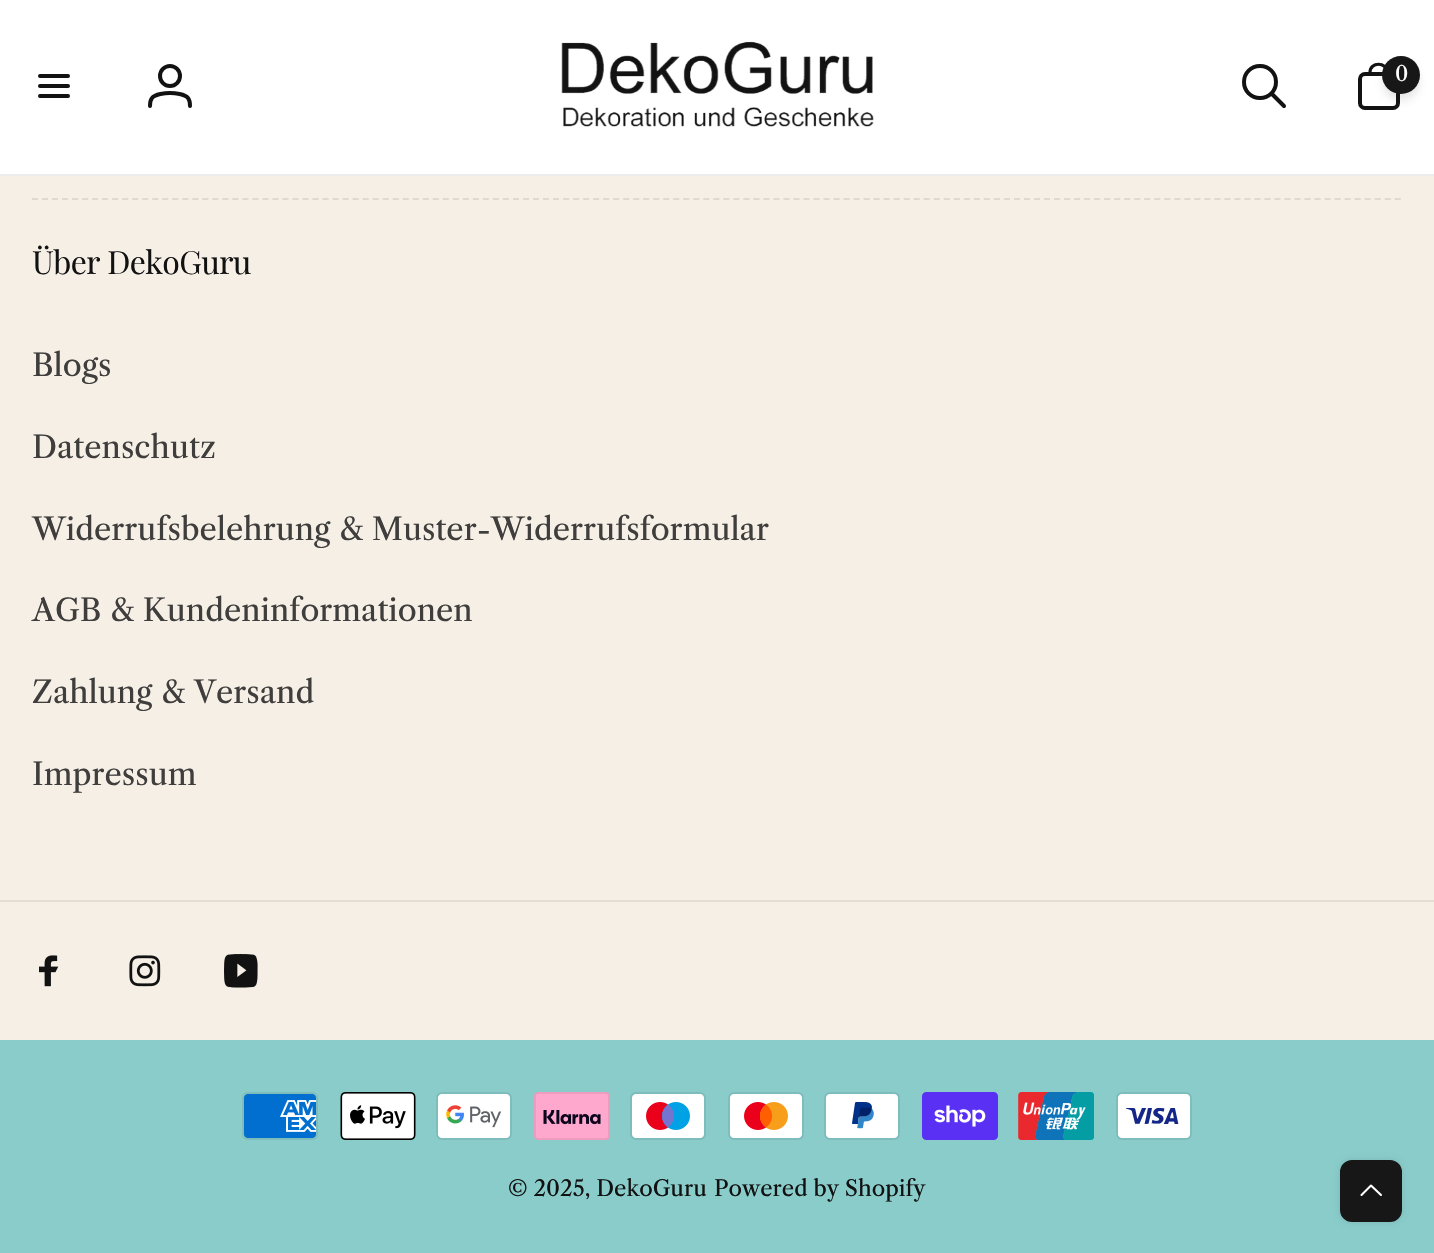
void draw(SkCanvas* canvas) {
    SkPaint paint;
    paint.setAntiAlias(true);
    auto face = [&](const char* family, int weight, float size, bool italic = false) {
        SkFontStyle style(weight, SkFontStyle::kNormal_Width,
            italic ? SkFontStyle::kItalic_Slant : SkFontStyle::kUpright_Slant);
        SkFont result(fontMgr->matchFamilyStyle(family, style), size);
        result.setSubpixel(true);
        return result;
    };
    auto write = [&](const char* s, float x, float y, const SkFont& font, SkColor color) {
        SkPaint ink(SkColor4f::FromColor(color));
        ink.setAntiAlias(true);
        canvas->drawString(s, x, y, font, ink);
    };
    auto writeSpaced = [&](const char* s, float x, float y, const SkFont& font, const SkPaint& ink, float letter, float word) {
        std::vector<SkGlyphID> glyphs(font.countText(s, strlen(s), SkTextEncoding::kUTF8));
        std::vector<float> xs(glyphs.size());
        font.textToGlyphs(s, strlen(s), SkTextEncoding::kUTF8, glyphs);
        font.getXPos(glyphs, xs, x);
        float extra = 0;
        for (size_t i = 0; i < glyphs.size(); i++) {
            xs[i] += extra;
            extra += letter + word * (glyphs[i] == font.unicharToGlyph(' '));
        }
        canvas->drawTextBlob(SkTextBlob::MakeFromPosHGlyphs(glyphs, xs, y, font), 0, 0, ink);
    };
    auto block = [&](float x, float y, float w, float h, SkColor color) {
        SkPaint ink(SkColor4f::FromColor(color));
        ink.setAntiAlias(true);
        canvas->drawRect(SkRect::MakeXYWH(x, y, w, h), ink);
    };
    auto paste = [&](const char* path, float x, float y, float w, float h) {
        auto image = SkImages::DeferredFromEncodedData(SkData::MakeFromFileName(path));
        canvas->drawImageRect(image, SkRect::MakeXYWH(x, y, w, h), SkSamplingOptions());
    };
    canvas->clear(SkColorSetRGB(245, 239, 230));
    block(0, 0, 1434, 174, SK_ColorWHITE);
    block(0, 174, 1434, 2, SkColorSetRGB(236, 236, 236));
    paint.setStyle(SkPaint::kStroke_Style);
    paint.setStrokeWidth(4);
    paint.setStrokeCap(SkPaint::kRound_Cap);
    paint.setColor(SkColorSetRGB(18, 18, 18));
    canvas->drawPath(SkPathBuilder().moveTo(40, 76).lineTo(68, 76).moveTo(40, 86).lineTo(68, 86).moveTo(40, 96).lineTo(68, 96).detach(), paint);
    paint.setStrokeCap(SkPaint::kButt_Cap);
    canvas->drawCircle(170, 76, 10, paint);
    paint.setStrokeCap(SkPaint::kRound_Cap);
    canvas->drawPath(SkPathBuilder().moveTo(170, 93).cubicTo(174.5f, 93, 185, 94, 188, 98).cubicTo(190, 100.5f, 190, 103, 190, 106).moveTo(170, 93).cubicTo(165.5f, 93, 155, 94, 152, 98).cubicTo(150, 100.5f, 150, 103, 150, 106).detach(), paint);
    paste("pic1.png", 561, 41, 313, 86);
    paint.setStrokeJoin(SkPaint::kRound_Join);
    canvas->drawPath(SkPathBuilder().moveTo(1284, 106).lineTo(1271.5f, 93.5f).moveTo(1260, 98).cubicTo(1269, 98, 1276, 91, 1276, 82).cubicTo(1276, 73, 1269, 66, 1260, 66).cubicTo(1251, 66, 1244, 73, 1244, 82).cubicTo(1244, 91, 1251, 98, 1260, 98).close().detach(), paint);
    paint.setStrokeCap(SkPaint::kButt_Cap);
    paint.setStrokeJoin(SkPaint::kMiter_Join);
    canvas->drawPath(SkPathBuilder().moveTo(1393, 74).lineTo(1365, 74).cubicTo(1362, 74, 1360, 76.5f, 1360, 79).lineTo(1360, 103).cubicTo(1360, 105.5f, 1362, 108, 1365, 108).lineTo(1393, 108).cubicTo(1396, 108, 1398, 105.5f, 1398, 103).lineTo(1398, 79).cubicTo(1398, 76.5f, 1396, 74, 1393, 74).close().detach(), paint);
    paint.setStrokeWidth(3.2f);
    paint.setStrokeCap(SkPaint::kRound_Cap);
    paint.setStrokeJoin(SkPaint::kRound_Join);
    canvas->drawPath(SkPathBuilder().moveTo(1370, 72.5f).cubicTo(1370, 61.5f, 1387, 61.5f, 1387, 72.5f).detach(), paint);
    paint.setStyle(SkPaint::kFill_Style);
    paint.setColor(SkColorSetARGB(15, 18, 18, 18));
    paint.setMaskFilter(SkMaskFilter::MakeBlur(kNormal_SkBlurStyle, 4));
    canvas->drawRoundRect(SkRect::MakeXYWH(1384, 62, 34, 34), 17, 17, paint);
    paint.setMaskFilter(nullptr);
    paint.setColor(SkColorSetARGB(26, 18, 18, 18));
    paint.setMaskFilter(SkMaskFilter::MakeBlur(kNormal_SkBlurStyle, 6));
    canvas->drawRoundRect(SkRect::MakeXYWH(1384, 66, 34, 34), 17, 17, paint);
    paint.setMaskFilter(nullptr);
    paint.setColor(SkColorSetRGB(23, 23, 23));
    canvas->drawCircle(1401, 75, 19, paint);
    auto kFont1 = face("Libre Caslon Text", 400, 21);
    write("0", 1395, 81, kFont1, SK_ColorWHITE);
    paint.setStyle(SkPaint::kStroke_Style);
    paint.setStrokeWidth(2);
    paint.setStrokeCap(SkPaint::kButt_Cap);
    paint.setStrokeJoin(SkPaint::kMiter_Join);
    paint.setColor(SkColorSetRGB(222, 217, 209));
    paint.setPathEffect(SkDashPathEffect::Make({{6, 4.02f}}, 0));
    canvas->drawPath(SkPathBuilder().moveTo(32, 199).lineTo(1402, 199).detach(), paint);
    paint.setPathEffect(nullptr);
    auto kFont2 = face("Playfair Display", 400, 32);
    paint.setStyle(SkPaint::kFill_Style);
    paint.setColor(SkColorSetRGB(18, 18, 18));
    writeSpaced("Über DekoGuru", 32, 274, kFont2, paint, -0.6f, 0);
    auto kFont3 = face("Libre Caslon Text", 400, 30.9f);
    write("Blogs", 32, 376, kFont3, SkColorSetRGB(63, 62, 60));
    write("Datenschutz", 32, 458, kFont3, SkColorSetRGB(63, 62, 60));
    write("Widerrufsbelehrung & Muster-Widerrufsformular", 32, 540, kFont3, SkColorSetRGB(63, 62, 60));
    write("AGB & Kundeninformationen", 32, 621, kFont3, SkColorSetRGB(63, 62, 60));
    write("Zahlung & Versand", 32, 703, kFont3, SkColorSetRGB(63, 62, 60));
    write("Impressum", 32, 785, kFont3, SkColorSetRGB(63, 62, 60));
    block(0, 900, 1434, 2, SkColorSetRGB(227, 221, 213));
    paste("pic2.png", 39, 955, 20, 32);
    paste("pic3.png", 129, 955, 32, 32);
    paste("pic4.png", 224, 954, 34, 34);
    block(0, 1040, 1434, 213, SkColorSetRGB(137, 204, 202));
    paste("pic5.png", 242, 1092, 76, 48);
    paste("pic6.png", 340, 1092, 76, 48);
    paste("pic7.png", 436, 1092, 76, 48);
    paste("pic8.png", 534, 1092, 76, 48);
    paste("pic9.png", 630, 1092, 76, 48);
    paste("pic10.png", 728, 1092, 76, 48);
    paste("pic11.png", 824, 1092, 76, 48);
    paste("pic12.png", 922, 1092, 76, 48);
    paste("pic13.png", 1018, 1092, 76, 48);
    paste("pic14.png", 1116, 1092, 76, 48);
    auto kFont4 = face("Libre Caslon Text", 400, 22);
    write("© 2025, DekoGuru", 508, 1196, kFont4, SkColorSetRGB(18, 18, 18));
    write("Powered by Shopify", 714, 1196, kFont4, SkColorSetRGB(18, 18, 18));
    paint.setColor(SkColorSetARGB(26, 0, 0, 0));
    paint.setMaskFilter(SkMaskFilter::MakeBlur(kNormal_SkBlurStyle, 3));
    canvas->drawRoundRect(SkRect::MakeXYWH(1340, 1160, 62, 62), 12, 12, paint);
    paint.setMaskFilter(nullptr);
    paint.setColor(SkColorSetRGB(23, 23, 23));
    canvas->drawRoundRect(SkRect::MakeXYWH(1341, 1161, 60, 60), 11, 11, paint);
    paint.setStyle(SkPaint::kStroke_Style);
    canvas->drawRoundRect(SkRect::MakeXYWH(1341, 1161, 60, 60), 11, 11, paint);
    paint.setStrokeWidth(2.1f);
    paint.setStrokeCap(SkPaint::kRound_Cap);
    paint.setStrokeJoin(SkPaint::kRound_Join);
    paint.setColor(SK_ColorWHITE);
    canvas->drawPath(SkPathBuilder().moveTo(1361.5f, 1195).lineTo(1371, 1185.5f).lineTo(1381, 1195).detach(), paint);
}
